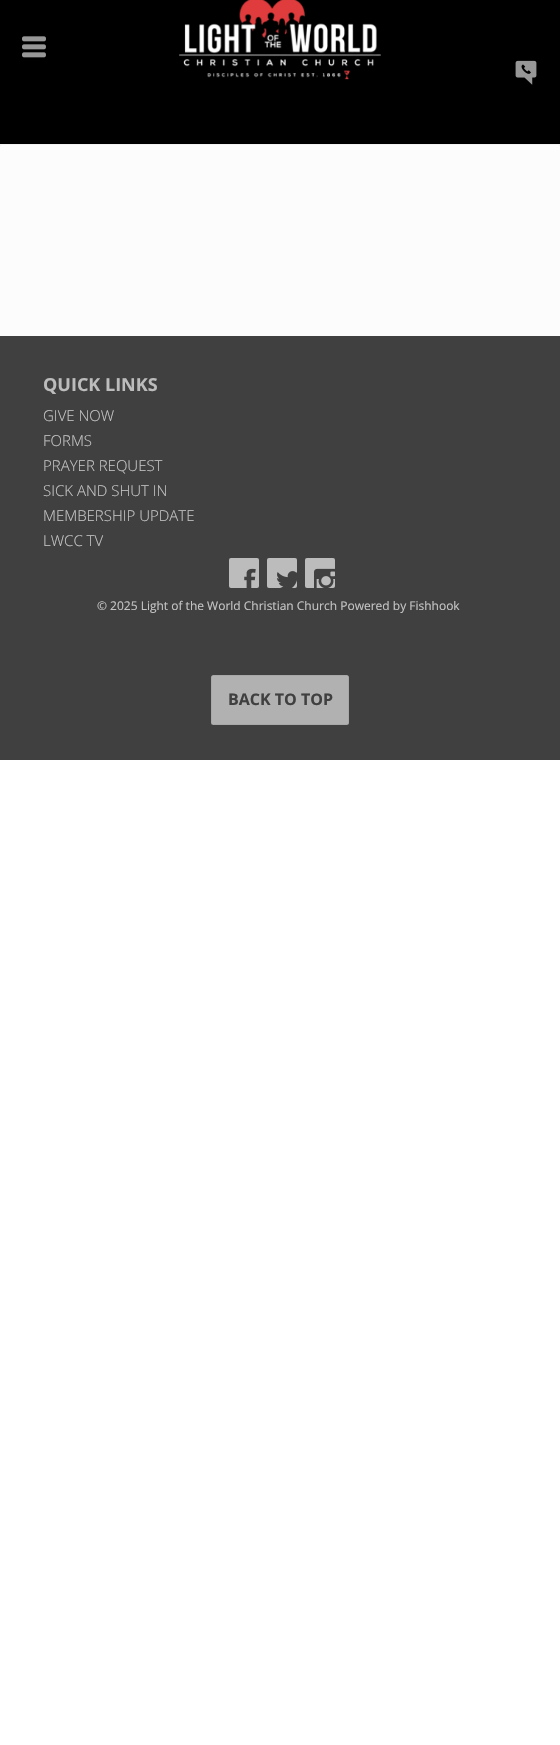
void draw(SkCanvas* canvas) {
    SkPaint paint;
    paint.setAntiAlias(true);
    auto face = [&](const char* family, int weight, float size, bool italic = false) {
        SkFontStyle style(weight, SkFontStyle::kNormal_Width,
            italic ? SkFontStyle::kItalic_Slant : SkFontStyle::kUpright_Slant);
        SkFont result(fontMgr->matchFamilyStyle(family, style), size);
        result.setSubpixel(true);
        return result;
    };
    auto write = [&](const char* s, float x, float y, const SkFont& font, SkColor color) {
        SkPaint ink(SkColor4f::FromColor(color));
        ink.setAntiAlias(true);
        canvas->drawString(s, x, y, font, ink);
    };
    auto block = [&](float x, float y, float w, float h, SkColor color) {
        SkPaint ink(SkColor4f::FromColor(color));
        ink.setAntiAlias(true);
        canvas->drawRect(SkRect::MakeXYWH(x, y, w, h), ink);
    };
    auto card = [&](float x, float y, float w, float h, float radius, SkColor color) {
        SkPaint ink(SkColor4f::FromColor(color));
        ink.setAntiAlias(true);
        canvas->drawRoundRect(SkRect::MakeXYWH(x, y, w, h), radius, radius, ink);
    };
    auto paste = [&](const char* path, float x, float y, float w, float h) {
        auto image = SkImages::DeferredFromEncodedData(SkData::MakeFromFileName(path));
        canvas->drawImageRect(image, SkRect::MakeXYWH(x, y, w, h), SkSamplingOptions());
    };
    canvas->clear(SK_ColorWHITE);
    block(0, 0, 560, 144, SK_ColorBLACK);
    paste("pic1.png", 22, 36, 24, 22);
    paste("pic2.png", 179, 0, 202, 80);
    paste("pic3.png", 515, 60, 22, 25);
    block(0, 146, 560, 190, SkColorSetRGB(252, 252, 252));
    block(0, 144, 560, 2, SkColorSetRGB(242, 242, 242));
    block(1, 145, 558, 1, SkColorSetRGB(252, 252, 252));
    block(0, 336, 560, 424, SkColorSetRGB(64, 64, 64));
    auto kFont1 = face("Open Sans", 700, 18);
    write("QUICK LINKS", 43, 391, kFont1, SkColorSetRGB(188, 188, 188));
    auto kFont2 = face("Open Sans", 300, 15);
    write("GIVE NOW", 43, 421, kFont2, SkColorSetRGB(196, 196, 196));
    write("FORMS", 43, 446, kFont2, SkColorSetRGB(196, 196, 196));
    write("PRAYER REQUEST", 43, 471, kFont2, SkColorSetRGB(196, 196, 196));
    write("SICK AND SHUT IN", 43, 496, kFont2, SkColorSetRGB(196, 196, 196));
    write("MEMBERSHIP UPDATE", 43, 521, kFont2, SkColorSetRGB(196, 196, 196));
    write("LWCC TV", 43, 546, kFont2, SkColorSetRGB(196, 196, 196));
    card(229, 558, 30, 30, 2, SkColorSetRGB(188, 188, 188));
    paste("pic4.png", 244, 568, 12, 20);
    card(267, 558, 30, 30, 2, SkColorSetRGB(188, 188, 188));
    paste("pic5.png", 277, 571, 20, 17);
    card(305, 558, 30, 30, 2, SkColorSetRGB(188, 188, 188));
    paste("pic6.png", 314, 568, 21, 20);
    auto kFont3 = face("Open Sans", 400, 12);
    write("© 2025 Light of the World Christian Church Powered by Fishhook", 97, 610, kFont3, SkColorSetRGB(196, 196, 196));
    card(211, 675, 138, 50, 2.5f, SkColorSetRGB(177, 177, 177));
    paint.setStyle(SkPaint::kStroke_Style);
    paint.setStrokeWidth(1);
    paint.setColor(SkColorSetARGB(13, 0, 0, 0));
    canvas->drawRect(SkRect::MakeXYWH(211.5f, 675.5f, 137, 49), paint);
    auto kFont4 = face("Open Sans", 700, 16);
    write("BACK TO TOP", 228, 705, kFont4, SkColorSetRGB(64, 64, 64));
}
